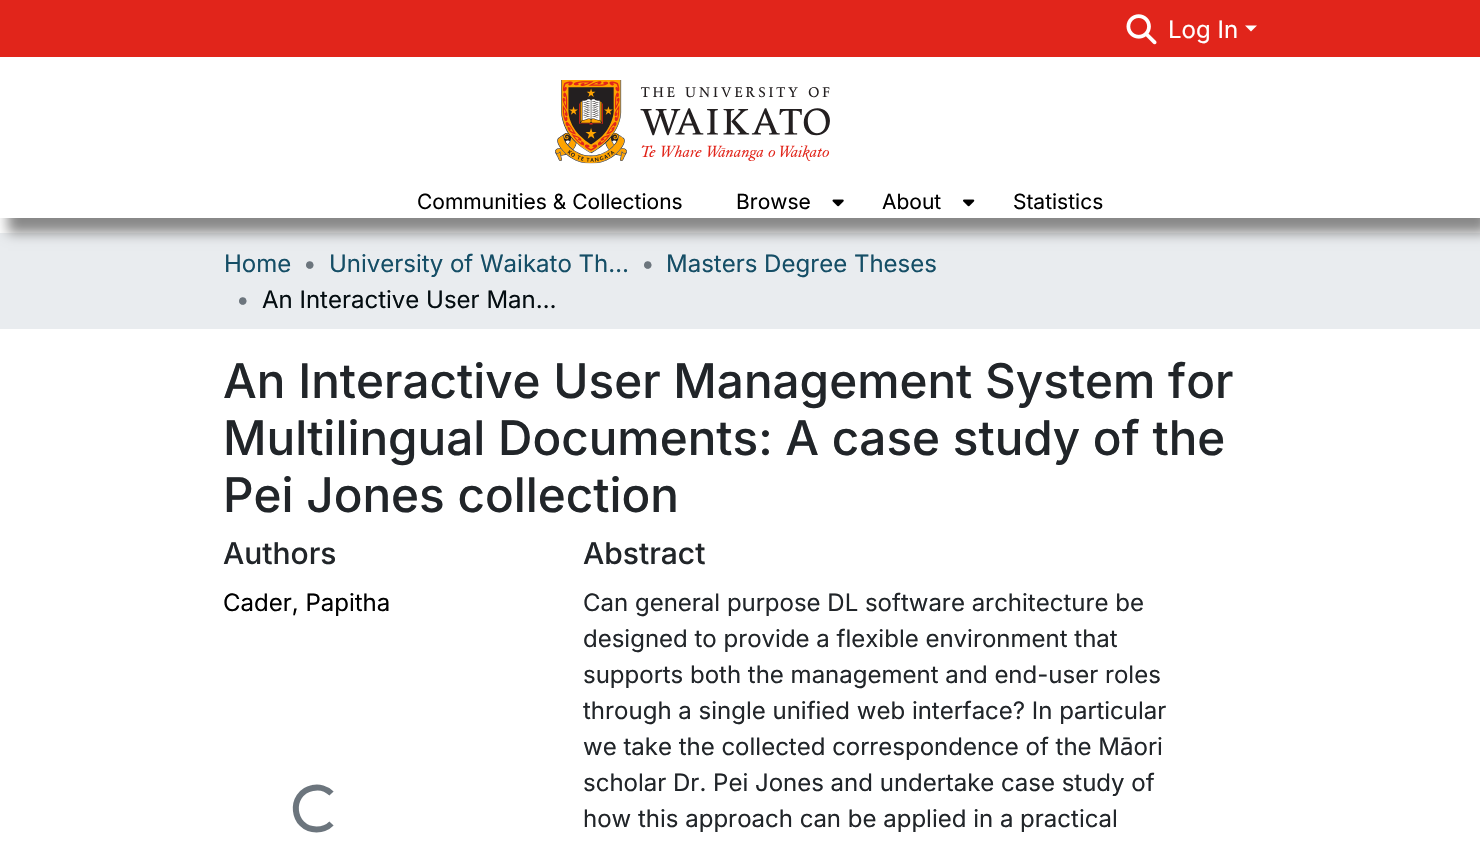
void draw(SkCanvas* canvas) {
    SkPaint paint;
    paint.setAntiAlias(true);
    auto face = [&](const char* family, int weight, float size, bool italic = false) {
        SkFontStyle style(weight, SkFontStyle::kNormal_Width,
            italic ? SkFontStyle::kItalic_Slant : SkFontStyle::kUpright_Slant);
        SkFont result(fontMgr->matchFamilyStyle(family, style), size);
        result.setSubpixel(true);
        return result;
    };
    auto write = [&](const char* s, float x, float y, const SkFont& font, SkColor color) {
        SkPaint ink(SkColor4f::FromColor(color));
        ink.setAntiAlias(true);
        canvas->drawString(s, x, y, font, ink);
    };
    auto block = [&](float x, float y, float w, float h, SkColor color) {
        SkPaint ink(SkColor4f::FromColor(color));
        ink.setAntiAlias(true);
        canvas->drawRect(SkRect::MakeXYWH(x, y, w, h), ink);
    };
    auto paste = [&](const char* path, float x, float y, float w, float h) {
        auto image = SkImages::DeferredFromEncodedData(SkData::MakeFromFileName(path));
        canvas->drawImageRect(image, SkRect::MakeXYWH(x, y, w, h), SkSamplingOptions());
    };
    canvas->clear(SK_ColorWHITE);
    block(0, 233, 1480, 96, SkColorSetRGB(233, 236, 239));
    canvas->save();
    canvas->clipPath(SkPathBuilder(SkPathFillType::kEvenOdd).moveTo(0, 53).lineTo(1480, 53).lineTo(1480, 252).lineTo(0, 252).close().moveTo(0, 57).lineTo(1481, 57).lineTo(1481, 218).lineTo(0, 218).close().detach(), true);
    paint.setColor(SkColorSetRGB(136, 136, 136));
    paint.setMaskFilter(SkMaskFilter::MakeBlur(kNormal_SkBlurStyle, 6));
    canvas->drawRect(SkRect::MakeXYWH(8, 72, 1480, 161), paint);
    paint.setMaskFilter(nullptr);
    canvas->restore();
    block(0, 0, 1480, 57, SkColorSetRGB(225, 37, 27));
    paste("pic1.png", 1126, 14, 31, 31);
    auto kFont1 = face("Inter", 400, 24);
    write("Log In", 1168, 38, kFont1, SK_ColorWHITE);
    paint.setColor(SK_ColorWHITE);
    canvas->drawPath(SkPathBuilder().moveTo(1245, 25.5f).lineTo(1257, 25.5f).lineTo(1251, 31.5f).close().detach(), paint);
    paste("pic2.png", 555, 80, 275, 84);
    auto kFont2 = face("Inter", 400, 21);
    write("Communities & Collections", 417, 209, kFont2, SK_ColorBLACK);
    write("Browse", 736, 209, kFont2, SK_ColorBLACK);
    paste("pic3.png", 832, 199, 12, 8);
    write("About", 882, 209, kFont2, SK_ColorBLACK);
    paste("pic4.png", 963, 199, 12, 8);
    write("Statistics", 1013, 209, kFont2, SK_ColorBLACK);
    write("Home", 224, 272, kFont1, SkColorSetRGB(21, 78, 102));
    write("•", 303, 272, kFont1, SkColorSetRGB(108, 117, 125));
    write("University of Waikato Th…", 329, 272, kFont1, SkColorSetRGB(21, 78, 102));
    write("•", 641, 272, kFont1, SkColorSetRGB(108, 117, 125));
    write("Masters Degree Theses", 666, 272, kFont1, SkColorSetRGB(21, 78, 102));
    write("•", 236, 308, kFont1, SkColorSetRGB(108, 117, 125));
    write("An Interactive User Man…", 262, 308, kFont1, SkColorSetRGB(4, 13, 17));
    auto kFont3 = face("Inter", 500, 47.65f);
    write("An Interactive User Management System for", 223, 398, kFont3, SkColorSetRGB(33, 37, 41));
    write("Multilingual Documents: A case study of the", 223, 455, kFont3, SkColorSetRGB(33, 37, 41));
    write("Pei Jones collection", 223, 512, kFont3, SkColorSetRGB(33, 37, 41));
    auto kFont4 = face("Inter", 500, 30);
    write("Authors", 223, 564, kFont4, SkColorSetRGB(33, 37, 41));
    write("Cader, Papitha", 223, 611, kFont1, SK_ColorBLACK);
    paint.setStyle(SkPaint::kStroke_Style);
    paint.setStrokeWidth(6);
    paint.setColor(SkColorSetRGB(108, 117, 125));
    canvas->drawPath(SkPathBuilder().moveTo(331.5f, 823.5f).cubicTo(327.5f, 827.5f, 322, 829.5f, 316.5f, 829.5f).cubicTo(291.5f, 829.5f, 288, 793, 312.5f, 788).cubicTo(319, 786.5f, 326.5f, 788.5f, 331.5f, 793.5f).detach(), paint);
    write("Abstract", 583, 564, kFont4, SkColorSetRGB(33, 37, 41));
    write("Can general purpose DL software architecture be", 583, 611, kFont1, SkColorSetRGB(33, 37, 41));
    write("designed to provide a flexible environment that", 583, 647, kFont1, SkColorSetRGB(33, 37, 41));
    write("supports both the management and end-user roles", 583, 683, kFont1, SkColorSetRGB(33, 37, 41));
    write("through a single unified web interface? In particular", 583, 719, kFont1, SkColorSetRGB(33, 37, 41));
    write("we take the collected correspondence of the Māori", 583, 755, kFont1, SkColorSetRGB(33, 37, 41));
    write("scholar Dr. Pei Jones and undertake case study of", 583, 791, kFont1, SkColorSetRGB(33, 37, 41));
    write("how this approach can be applied in a practical", 583, 827, kFont1, SkColorSetRGB(33, 37, 41));
}
